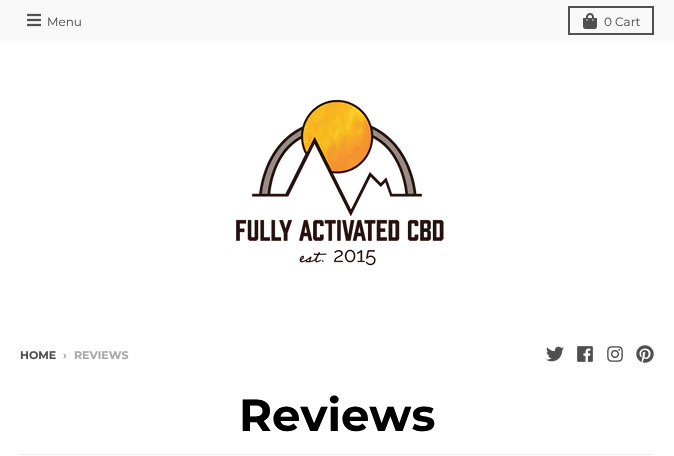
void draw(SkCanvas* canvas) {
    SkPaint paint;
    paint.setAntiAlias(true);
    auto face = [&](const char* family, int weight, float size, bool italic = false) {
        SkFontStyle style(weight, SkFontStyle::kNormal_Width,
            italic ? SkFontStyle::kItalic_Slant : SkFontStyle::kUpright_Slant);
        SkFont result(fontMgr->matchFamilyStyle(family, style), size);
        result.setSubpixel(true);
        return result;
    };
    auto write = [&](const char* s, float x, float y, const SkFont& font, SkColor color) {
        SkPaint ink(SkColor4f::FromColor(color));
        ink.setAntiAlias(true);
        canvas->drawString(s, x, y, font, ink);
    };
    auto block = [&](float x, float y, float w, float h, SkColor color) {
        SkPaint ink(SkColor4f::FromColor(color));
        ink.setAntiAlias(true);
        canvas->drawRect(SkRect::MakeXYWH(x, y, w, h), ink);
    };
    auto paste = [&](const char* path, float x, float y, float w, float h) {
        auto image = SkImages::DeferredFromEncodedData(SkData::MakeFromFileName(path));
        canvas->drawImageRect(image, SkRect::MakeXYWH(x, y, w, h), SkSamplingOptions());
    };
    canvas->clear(SK_ColorWHITE);
    block(0, 0, 674, 41, SkColorSetRGB(248, 248, 248));
    paste("pic1.png", 27, 13, 14, 14);
    auto kFont1 = face("Montserrat", 400, 12);
    write("Menu", 47, 26, kFont1, SkColorSetRGB(79, 79, 79));
    paint.setStyle(SkPaint::kStroke_Style);
    paint.setStrokeWidth(2);
    paint.setColor(SkColorSetRGB(80, 80, 80));
    canvas->drawRect(SkRect::MakeXYWH(569, 7, 84, 27), paint);
    paste("pic2.png", 583, 13, 14, 16);
    write("0 Cart", 604, 26, kFont1, SkColorSetRGB(79, 79, 79));
    paste("pic3.png", 236, 99, 208, 167);
    auto kFont2 = face("Montserrat", 700, 11);
    write("HOME", 20, 359, kFont2, SkColorSetRGB(79, 79, 79));
    write("›", 63, 359, kFont2, SkColorSetRGB(167, 167, 167));
    write("REVIEWS", 74, 359, kFont2, SkColorSetRGB(167, 167, 167));
    paste("pic4.png", 546, 346, 18, 16);
    paste("pic5.png", 577, 346, 16, 16);
    paste("pic6.png", 607, 346, 16, 16);
    paste("pic7.png", 636, 345, 18, 18);
    block(20, 454, 634, 1, SkColorSetRGB(237, 237, 237));
    auto kFont3 = face("Montserrat", 700, 45);
    write("Reviews", 239, 431, kFont3, SK_ColorBLACK);
}
